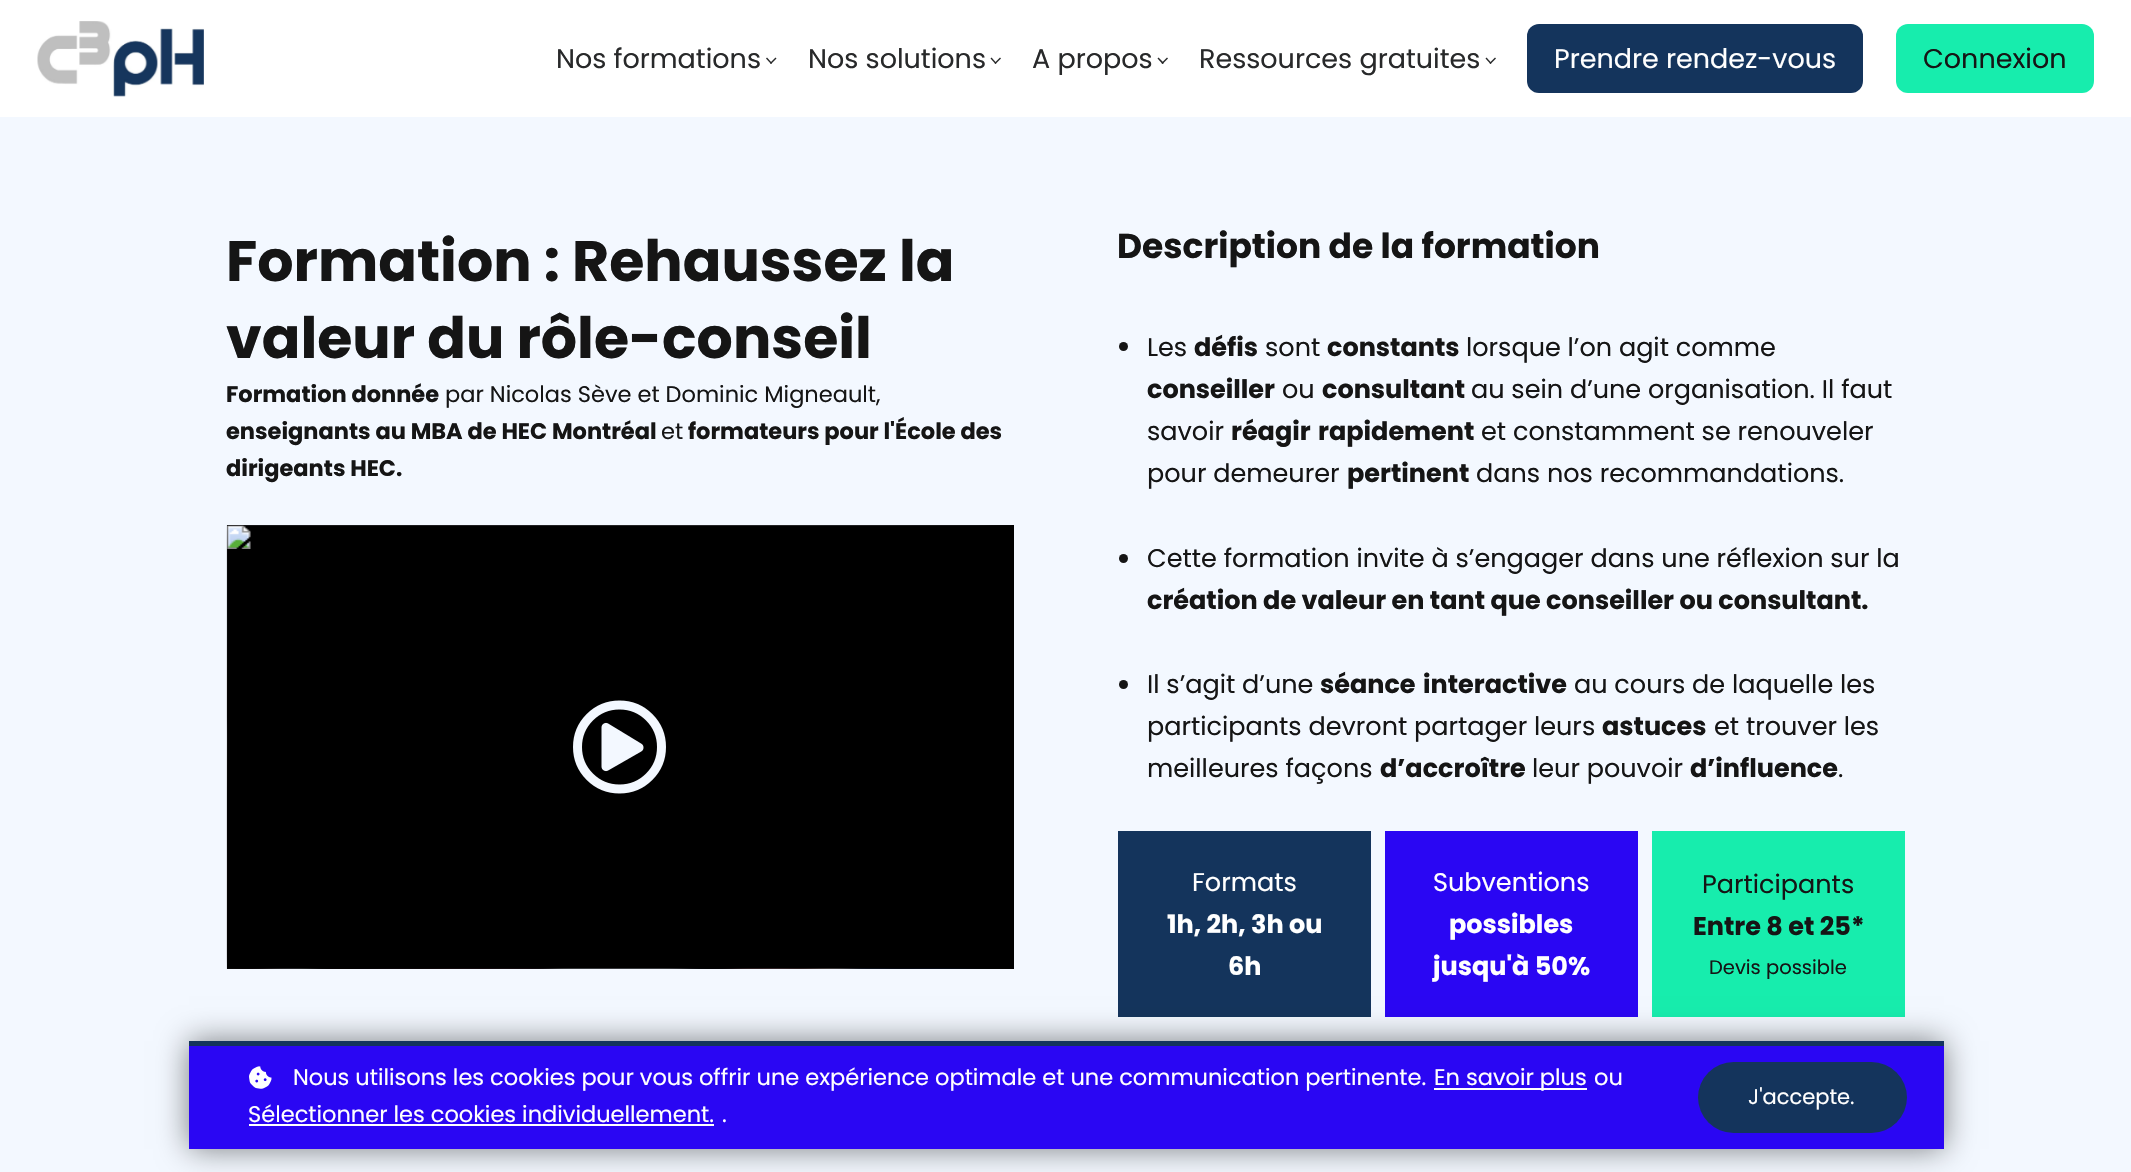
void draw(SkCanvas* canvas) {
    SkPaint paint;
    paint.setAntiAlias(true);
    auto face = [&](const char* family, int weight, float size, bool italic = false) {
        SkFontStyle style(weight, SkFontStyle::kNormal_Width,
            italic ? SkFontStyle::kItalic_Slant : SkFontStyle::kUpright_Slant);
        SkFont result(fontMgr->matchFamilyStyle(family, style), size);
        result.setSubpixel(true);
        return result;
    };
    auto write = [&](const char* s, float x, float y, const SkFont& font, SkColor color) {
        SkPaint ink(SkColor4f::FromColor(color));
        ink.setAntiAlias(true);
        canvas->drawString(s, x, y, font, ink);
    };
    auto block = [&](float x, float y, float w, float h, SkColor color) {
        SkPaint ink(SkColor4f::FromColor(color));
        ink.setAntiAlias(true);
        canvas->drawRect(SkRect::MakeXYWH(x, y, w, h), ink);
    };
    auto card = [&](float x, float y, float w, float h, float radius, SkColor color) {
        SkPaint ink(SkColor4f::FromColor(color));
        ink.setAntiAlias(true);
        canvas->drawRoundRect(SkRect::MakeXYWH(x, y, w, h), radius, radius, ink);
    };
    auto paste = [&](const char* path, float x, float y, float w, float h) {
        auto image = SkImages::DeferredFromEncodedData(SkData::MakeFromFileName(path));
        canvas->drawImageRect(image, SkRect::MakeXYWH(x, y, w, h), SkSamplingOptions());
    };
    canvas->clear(SK_ColorWHITE);
    paste("pic1.png", 37, 21, 167, 76);
    auto kFont1 = face("Poppins", 400, 27);
    write("Nos formations", 556, 68, kFont1, SkColorSetRGB(40, 41, 42));
    paint.setColor(SkColorSetRGB(40, 41, 42));
    canvas->drawPath(SkPathBuilder().moveTo(776.5f, 58.5f).lineTo(771, 64).lineTo(770, 63).lineTo(775.5f, 57.5f).close().detach(), paint);
    canvas->drawPath(SkPathBuilder().moveTo(772, 63).lineTo(771, 64).lineTo(766, 58.5f).lineTo(767, 57.5f).close().detach(), paint);
    write("Nos solutions", 808, 68, kFont1, SkColorSetRGB(40, 41, 42));
    canvas->drawPath(SkPathBuilder().moveTo(1001, 58.5f).lineTo(995.5f, 64).lineTo(994.5f, 63).lineTo(1000, 57.5f).close().detach(), paint);
    canvas->drawPath(SkPathBuilder().moveTo(996.5f, 63).lineTo(995.5f, 64).lineTo(990.5f, 58.5f).lineTo(991.5f, 57.5f).close().detach(), paint);
    write("A propos", 1032, 68, kFont1, SkColorSetRGB(40, 41, 42));
    canvas->drawPath(SkPathBuilder().moveTo(1168, 58.5f).lineTo(1162.5f, 64).lineTo(1161.5f, 63).lineTo(1167, 57.5f).close().detach(), paint);
    canvas->drawPath(SkPathBuilder().moveTo(1164, 63).lineTo(1162.5f, 64).lineTo(1157.5f, 58.5f).lineTo(1158.5f, 57.5f).close().detach(), paint);
    write("Ressources gratuites", 1199, 68, kFont1, SkColorSetRGB(40, 41, 42));
    canvas->drawPath(SkPathBuilder().moveTo(1496, 58.5f).lineTo(1490.5f, 64).lineTo(1489.5f, 63).lineTo(1495, 57.5f).close().detach(), paint);
    canvas->drawPath(SkPathBuilder().moveTo(1491.5f, 63).lineTo(1490.5f, 64).lineTo(1485.5f, 58.5f).lineTo(1486.5f, 57.5f).close().detach(), paint);
    card(1527, 24, 336, 69, 12, SkColorSetRGB(20, 52, 92));
    write("Prendre rendez-vous", 1554, 68, kFont1, SK_ColorWHITE);
    card(1896, 24, 198, 69, 12, SkColorSetRGB(23, 237, 173));
    write("Connexion", 1923, 68, kFont1, SkColorSetRGB(21, 21, 21));
    block(0, 117, 2131, 1055, SkColorSetRGB(243, 248, 255));
    auto kFont2 = face("Poppins", 700, 57);
    write("Formation : Rehaussez la", 226, 281, kFont2, SkColorSetRGB(21, 21, 21));
    write("valeur du rôle-conseil", 226, 358, kFont2, SkColorSetRGB(21, 21, 21));
    auto kFont3 = face("Poppins", 700, 22.5f);
    write("Formation donnée", 226, 402, kFont3, SkColorSetRGB(21, 21, 21));
    auto kFont4 = face("Poppins", 400, 22.5f);
    write("par Nicolas Sève et Dominic Migneault,", 445, 402, kFont4, SkColorSetRGB(21, 21, 21));
    write("enseignants au MBA de HEC Montréal", 226, 439, kFont3, SkColorSetRGB(21, 21, 21));
    write("et", 661, 439, kFont4, SkColorSetRGB(21, 21, 21));
    write("formateurs pour l'École des", 688, 439, kFont3, SkColorSetRGB(21, 21, 21));
    write("dirigeants HEC.", 226, 476, kFont3, SkColorSetRGB(21, 21, 21));
    block(227, 525, 787, 444, SK_ColorBLACK);
    paste("pic2.png", 226, 525, 786, 444);
    paste("pic3.png", 573, 700, 93, 94);
    auto kFont5 = face("Poppins", 700, 34.5f);
    write("Description de la formation", 1117, 258, kFont5, SkColorSetRGB(21, 21, 21));
    paint.setColor(SkColorSetRGB(21, 21, 21));
    canvas->drawCircle(1123.5f, 346.5f, 4.5f, paint);
    auto kFont6 = face("Poppins", 400, 25.5f);
    write("Les", 1147, 356, kFont6, SkColorSetRGB(21, 21, 21));
    auto kFont7 = face("Poppins", 700, 25.5f);
    write("défis", 1194, 356, kFont7, SkColorSetRGB(21, 21, 21));
    write("sont", 1265, 356, kFont6, SkColorSetRGB(21, 21, 21));
    write("constants", 1327, 356, kFont7, SkColorSetRGB(21, 21, 21));
    write("lorsque l’on agit comme", 1466, 356, kFont6, SkColorSetRGB(21, 21, 21));
    write("conseiller", 1147, 398, kFont7, SkColorSetRGB(21, 21, 21));
    write("ou", 1282, 398, kFont6, SkColorSetRGB(21, 21, 21));
    write("consultant", 1322, 398, kFont7, SkColorSetRGB(21, 21, 21));
    write("au sein d’une organisation. Il faut", 1471, 398, kFont6, SkColorSetRGB(21, 21, 21));
    write("savoir", 1147, 440, kFont6, SkColorSetRGB(21, 21, 21));
    write("réagir", 1231, 440, kFont7, SkColorSetRGB(21, 21, 21));
    write("rapidement", 1318, 440, kFont7, SkColorSetRGB(21, 21, 21));
    write("et constamment se renouveler", 1481, 440, kFont6, SkColorSetRGB(21, 21, 21));
    write("pour demeurer", 1147, 482, kFont6, SkColorSetRGB(21, 21, 21));
    write("pertinent", 1347, 482, kFont7, SkColorSetRGB(21, 21, 21));
    write("dans nos recommandations.", 1476, 482, kFont6, SkColorSetRGB(21, 21, 21));
    canvas->drawCircle(1123.5f, 558.5f, 4.5f, paint);
    write("Cette formation invite à s’engager dans une réflexion sur la", 1147, 567, kFont6, SkColorSetRGB(21, 21, 21));
    write("création de valeur en tant que conseiller ou consultant.", 1147, 609, kFont7, SkColorSetRGB(21, 21, 21));
    canvas->drawCircle(1123.5f, 684.5f, 4.5f, paint);
    write("Il s’agit d’une", 1147, 693, kFont6, SkColorSetRGB(21, 21, 21));
    write("séance", 1320, 693, kFont7, SkColorSetRGB(21, 21, 21));
    write("interactive", 1423, 693, kFont7, SkColorSetRGB(21, 21, 21));
    write("au cours de laquelle les", 1574, 693, kFont6, SkColorSetRGB(21, 21, 21));
    write("participants devront partager leurs", 1147, 735, kFont6, SkColorSetRGB(21, 21, 21));
    write("astuces", 1602, 735, kFont7, SkColorSetRGB(21, 21, 21));
    write("et trouver les", 1714, 735, kFont6, SkColorSetRGB(21, 21, 21));
    write("meilleures façons", 1147, 777, kFont6, SkColorSetRGB(21, 21, 21));
    write("d’accroître", 1380, 777, kFont7, SkColorSetRGB(21, 21, 21));
    write("leur pouvoir", 1532, 777, kFont6, SkColorSetRGB(21, 21, 21));
    write("d’influence", 1690, 777, kFont7, SkColorSetRGB(21, 21, 21));
    write(".", 1838, 777, kFont6, SkColorSetRGB(21, 21, 21));
    block(1118, 831, 253, 186, SkColorSetRGB(20, 52, 92));
    write("Formats", 1192, 891, kFont6, SK_ColorWHITE);
    write("1h, 2h, 3h ou", 1167, 933, kFont7, SK_ColorWHITE);
    write("6h", 1228, 975, kFont7, SK_ColorWHITE);
    block(1385, 831, 253, 186, SkColorSetRGB(42, 6, 243));
    write("Subventions", 1433, 891, kFont6, SK_ColorWHITE);
    write("possibles", 1449, 933, kFont7, SK_ColorWHITE);
    write("jusqu'à 50%", 1433, 975, kFont7, SK_ColorWHITE);
    block(1652, 831, 253, 186, SkColorSetRGB(23, 237, 173));
    write("Participants", 1702, 893, kFont6, SkColorSetRGB(21, 21, 21));
    write("Entre 8 et 25*", 1693, 935, kFont7, SkColorSetRGB(21, 21, 21));
    auto kFont8 = face("Poppins", 400, 19.5f);
    write("Devis possible", 1709, 974, kFont8, SkColorSetRGB(21, 21, 21));
    paint.setColor(SkColorSetARGB(128, 0, 0, 0));
    paint.setMaskFilter(SkMaskFilter::MakeBlur(kNormal_SkBlurStyle, 15));
    canvas->drawRect(SkRect::MakeXYWH(189, 1041, 1755, 108), paint);
    paint.setMaskFilter(nullptr);
    block(189, 1046, 1755, 103, SkColorSetRGB(42, 6, 243));
    block(189, 1041, 1755, 5, SkColorSetRGB(20, 52, 92));
    paste("pic4.png", 249, 1066, 23, 23);
    write("Nous utilisons les cookies pour vous offrir une expérience optimale et une communication pertinente.", 293, 1085, kFont4, SK_ColorWHITE);
    block(1434, 1088, 153, 2, SK_ColorWHITE);
    write("En savoir plus", 1434, 1085, kFont4, SK_ColorWHITE);
    write("ou", 1594, 1085, kFont4, SK_ColorWHITE);
    write("Sélectionner les cookies individuellement.", 248, 1122, kFont4, SK_ColorWHITE);
    block(249, 1124, 465, 2, SK_ColorWHITE);
    write(".", 722, 1122, kFont4, SK_ColorWHITE);
    card(1698, 1062, 209, 71, 35.5f, SkColorSetRGB(20, 52, 92));
    auto kFont9 = face("Poppins", 400, 21);
    write("J'accepte.", 1748, 1104, kFont9, SK_ColorWHITE);
}
